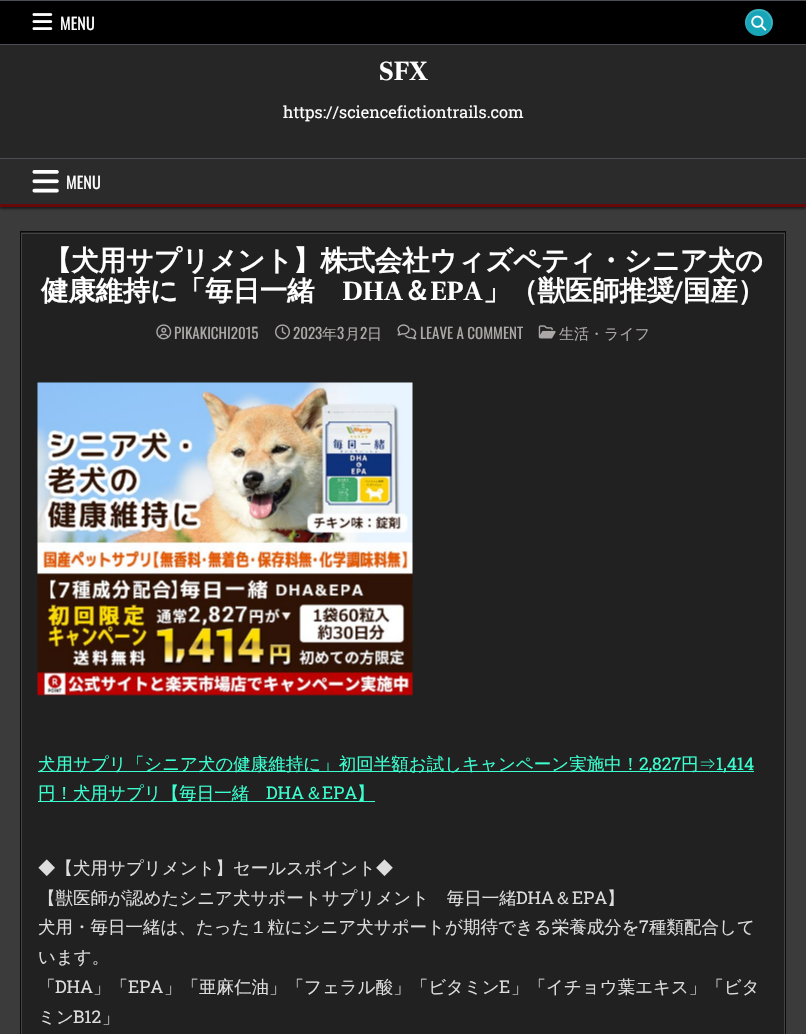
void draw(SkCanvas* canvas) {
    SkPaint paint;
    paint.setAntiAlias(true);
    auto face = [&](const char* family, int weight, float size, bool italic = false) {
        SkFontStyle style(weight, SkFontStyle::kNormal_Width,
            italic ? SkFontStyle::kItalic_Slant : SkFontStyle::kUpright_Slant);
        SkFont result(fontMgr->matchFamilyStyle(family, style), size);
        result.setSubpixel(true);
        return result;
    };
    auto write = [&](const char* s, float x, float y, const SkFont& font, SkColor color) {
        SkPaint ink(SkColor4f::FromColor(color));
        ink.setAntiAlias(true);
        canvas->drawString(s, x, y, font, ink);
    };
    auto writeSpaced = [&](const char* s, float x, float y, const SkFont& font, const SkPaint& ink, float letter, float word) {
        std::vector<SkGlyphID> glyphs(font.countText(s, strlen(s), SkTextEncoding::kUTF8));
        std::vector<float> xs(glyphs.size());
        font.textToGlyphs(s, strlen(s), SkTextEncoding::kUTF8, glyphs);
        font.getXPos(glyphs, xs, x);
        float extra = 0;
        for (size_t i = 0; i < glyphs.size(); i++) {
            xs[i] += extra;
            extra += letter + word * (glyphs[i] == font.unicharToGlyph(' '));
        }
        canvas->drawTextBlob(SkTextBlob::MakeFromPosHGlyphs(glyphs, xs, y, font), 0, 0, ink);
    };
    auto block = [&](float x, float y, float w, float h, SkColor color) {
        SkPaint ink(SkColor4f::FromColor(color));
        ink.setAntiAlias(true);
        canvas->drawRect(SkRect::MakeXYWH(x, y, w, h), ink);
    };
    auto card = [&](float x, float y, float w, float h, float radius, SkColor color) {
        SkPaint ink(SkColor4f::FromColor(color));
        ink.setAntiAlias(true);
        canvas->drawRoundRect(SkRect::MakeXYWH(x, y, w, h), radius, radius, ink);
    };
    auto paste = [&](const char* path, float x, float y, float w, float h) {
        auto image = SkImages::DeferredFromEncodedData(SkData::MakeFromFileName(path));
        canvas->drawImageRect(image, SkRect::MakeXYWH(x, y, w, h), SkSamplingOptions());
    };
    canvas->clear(SkColorSetRGB(59, 59, 59));
    block(0, 1, 806, 43, SK_ColorBLACK);
    block(0, 0, 806, 1, SkColorSetRGB(74, 78, 83));
    block(0, 44, 806, 1, SkColorSetRGB(74, 78, 83));
    paste("pic1.png", 32, 13, 21, 17);
    auto kFont1 = face("Oswald", 400, 16.25f);
    write("MENU", 60, 30, kFont1, SK_ColorWHITE);
    card(745, 9, 28, 27, 13.5f, SkColorSetRGB(24, 165, 183));
    paint.setColor(SkColorSetARGB(36, 255, 255, 255));
    canvas->drawPath(SkPathBuilder(SkPathFillType::kEvenOdd).moveTo(758.5f, 9).cubicTo(741.5f, 9, 740, 34.5f, 758.5f, 36).cubicTo(761.5f, 36, 764.5f, 35.5f, 767, 33.5f).cubicTo(778, 26.5f, 772.5f, 9, 759.5f, 9).close().moveTo(759, 11).cubicTo(775, 11, 775, 36, 759, 36).cubicTo(742, 36, 742, 11, 759, 11).close().detach(), paint);
    paste("pic2.png", 751, 15, 16, 16);
    paint.setColor(SkColorSetARGB(128, 0, 0, 0));
    paint.setMaskFilter(SkMaskFilter::MakeBlur(kNormal_SkBlurStyle, 1));
    canvas->drawRect(SkRect::MakeXYWH(0, 160, 806, 49), paint);
    paint.setMaskFilter(nullptr);
    block(0, 45, 806, 113, SkColorSetRGB(38, 38, 38));
    auto kFont2 = face("Frank Ruhl Libre", 700, 27.5f);
    write("SFX", 379, 80, kFont2, SK_ColorWHITE);
    auto kFont3 = face("Roboto Slab", 400, 16.25f);
    write("https://sciencefictiontrails.com", 283, 118, kFont3, SK_ColorWHITE);
    block(0, 159, 806, 45, SkColorSetRGB(43, 43, 43));
    block(0, 158, 806, 1, SkColorSetRGB(74, 78, 83));
    block(0, 204, 806, 3, SkColorSetRGB(103, 8, 11));
    paste("pic3.png", 32, 170, 27, 23);
    write("MENU", 66, 189, kFont1, SK_ColorWHITE);
    paint.setColor(SkColorSetRGB(33, 33, 33));
    canvas->drawRect(SkRect::MakeXYWH(20.5f, 231.5f, 765, 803), paint);
    paint.setStyle(SkPaint::kStroke_Style);
    paint.setStrokeWidth(1);
    paint.setColor(SkColorSetRGB(9, 9, 9));
    canvas->drawRect(SkRect::MakeXYWH(20.5f, 231.5f, 765, 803), paint);
    paint.setColor(SkColorSetRGB(68, 68, 68));
    canvas->drawRect(SkRect::MakeXYWH(21.5f, 233.5f, 763, 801), paint);
    auto kFont4 = face("WenQuanYi Zen Hei", 700, 27.5f);
    paint.setStyle(SkPaint::kFill_Style);
    paint.setColor(SK_ColorWHITE);
    writeSpaced("【犬用サプリメント】株式会社ウィズペティ・シニア犬の", 44, 270, kFont4, paint, -0.25f, 0);
    writeSpaced("健康維持に「毎日一緒", 41, 300, kFont4, paint, -0.25f, 0);
    writeSpaced("DHA", 342, 300, kFont2, paint, -0.25f, 0);
    writeSpaced("＆", 403, 300, kFont4, paint, -0.25f, 0);
    writeSpaced("EPA", 430, 300, kFont2, paint, -0.25f, 0);
    writeSpaced("」（獣医師推奨", 483, 300, kFont4, paint, -0.25f, 0);
    writeSpaced("/", 673, 300, kFont2, paint, -0.25f, 0);
    writeSpaced("国産）", 683, 300, kFont4, paint, -0.25f, 0);
    paste("pic4.png", 156, 324, 16, 16);
    auto kFont5 = face("Oswald", 400, 15);
    write("PIKAKICHI2015", 174, 339, kFont5, SkColorSetRGB(173, 168, 168));
    paste("pic5.png", 275, 324, 15, 16);
    write("2023", 293, 339, kFont5, SkColorSetRGB(173, 168, 168));
    auto kFont6 = face("WenQuanYi Zen Hei", 500, 15);
    write("年", 322, 339, kFont6, SkColorSetRGB(173, 168, 168));
    write("3", 337, 339, kFont5, SkColorSetRGB(173, 168, 168));
    write("月", 345, 339, kFont6, SkColorSetRGB(173, 168, 168));
    write("2", 360, 339, kFont5, SkColorSetRGB(173, 168, 168));
    write("日", 367, 339, kFont6, SkColorSetRGB(173, 168, 168));
    paste("pic6.png", 397, 324, 20, 16);
    write("LEAVE A COMMENT", 420, 339, kFont5, SkColorSetRGB(173, 168, 168));
    paste("pic7.png", 538, 325, 18, 14);
    write("生活・ライフ", 559, 339, kFont6, SkColorSetRGB(173, 168, 168));
    paste("pic8.png", 37, 382, 376, 314);
    block(38, 771, 716, 1, SkColorSetRGB(60, 255, 208));
    auto kFont7 = face("WenQuanYi Zen Hei", 500, 17.5f);
    write("犬用サプリ「シニア犬の健康維持に」初回半額お試しキャンペーン実施中！", 38, 770, kFont7, SkColorSetRGB(60, 255, 208));
    auto kFont8 = face("Roboto Slab", 400, 17.5f);
    write("2,827", 639, 770, kFont8, SkColorSetRGB(60, 255, 208));
    write("円⇒", 681, 770, kFont7, SkColorSetRGB(60, 255, 208));
    write("1,414", 716, 770, kFont8, SkColorSetRGB(60, 255, 208));
    block(38, 801, 337, 1, SkColorSetRGB(60, 255, 208));
    write("円！犬用サプリ【毎日一緒", 38, 799, kFont7, SkColorSetRGB(60, 255, 208));
    write("DHA", 266, 799, kFont8, SkColorSetRGB(60, 255, 208));
    write("＆", 305, 799, kFont7, SkColorSetRGB(60, 255, 208));
    write("EPA", 322, 799, kFont8, SkColorSetRGB(60, 255, 208));
    write("】", 357, 799, kFont7, SkColorSetRGB(60, 255, 208));
    write("◆【犬用サプリメント】セールスポイント◆", 38, 874, kFont7, SkColorSetRGB(221, 221, 221));
    write("【獣医師が認めたシニア犬サポートサプリメント　毎日一緒", 38, 904, kFont7, SkColorSetRGB(221, 221, 221));
    write("DHA", 516, 904, kFont8, SkColorSetRGB(221, 221, 221));
    write("＆", 554, 904, kFont7, SkColorSetRGB(221, 221, 221));
    write("EPA", 572, 904, kFont8, SkColorSetRGB(221, 221, 221));
    write("】", 607, 904, kFont7, SkColorSetRGB(221, 221, 221));
    write("犬用・毎日一緒は、たった１粒にシニア犬サポートが期待できる栄養成分を", 38, 933, kFont7, SkColorSetRGB(221, 221, 221));
    write("7", 639, 933, kFont8, SkColorSetRGB(221, 221, 221));
    write("種類配合して", 649, 933, kFont7, SkColorSetRGB(221, 221, 221));
    write("います。", 38, 963, kFont7, SkColorSetRGB(221, 221, 221));
    write("「", 38, 993, kFont7, SkColorSetRGB(221, 221, 221));
    write("DHA", 55, 993, kFont8, SkColorSetRGB(221, 221, 221));
    write("」「", 93, 993, kFont7, SkColorSetRGB(221, 221, 221));
    write("EPA", 128, 993, kFont8, SkColorSetRGB(221, 221, 221));
    write("」「亜麻仁油」「フェラル酸」「ビタミン", 164, 993, kFont7, SkColorSetRGB(221, 221, 221));
    write("E", 499, 993, kFont8, SkColorSetRGB(221, 221, 221));
    write("」「イチョウ葉エキス」「ビタ", 511, 993, kFont7, SkColorSetRGB(221, 221, 221));
    write("ミン", 38, 1023, kFont7, SkColorSetRGB(221, 221, 221));
    write("B12", 73, 1023, kFont8, SkColorSetRGB(221, 221, 221));
    write("」", 102, 1023, kFont7, SkColorSetRGB(221, 221, 221));
}
